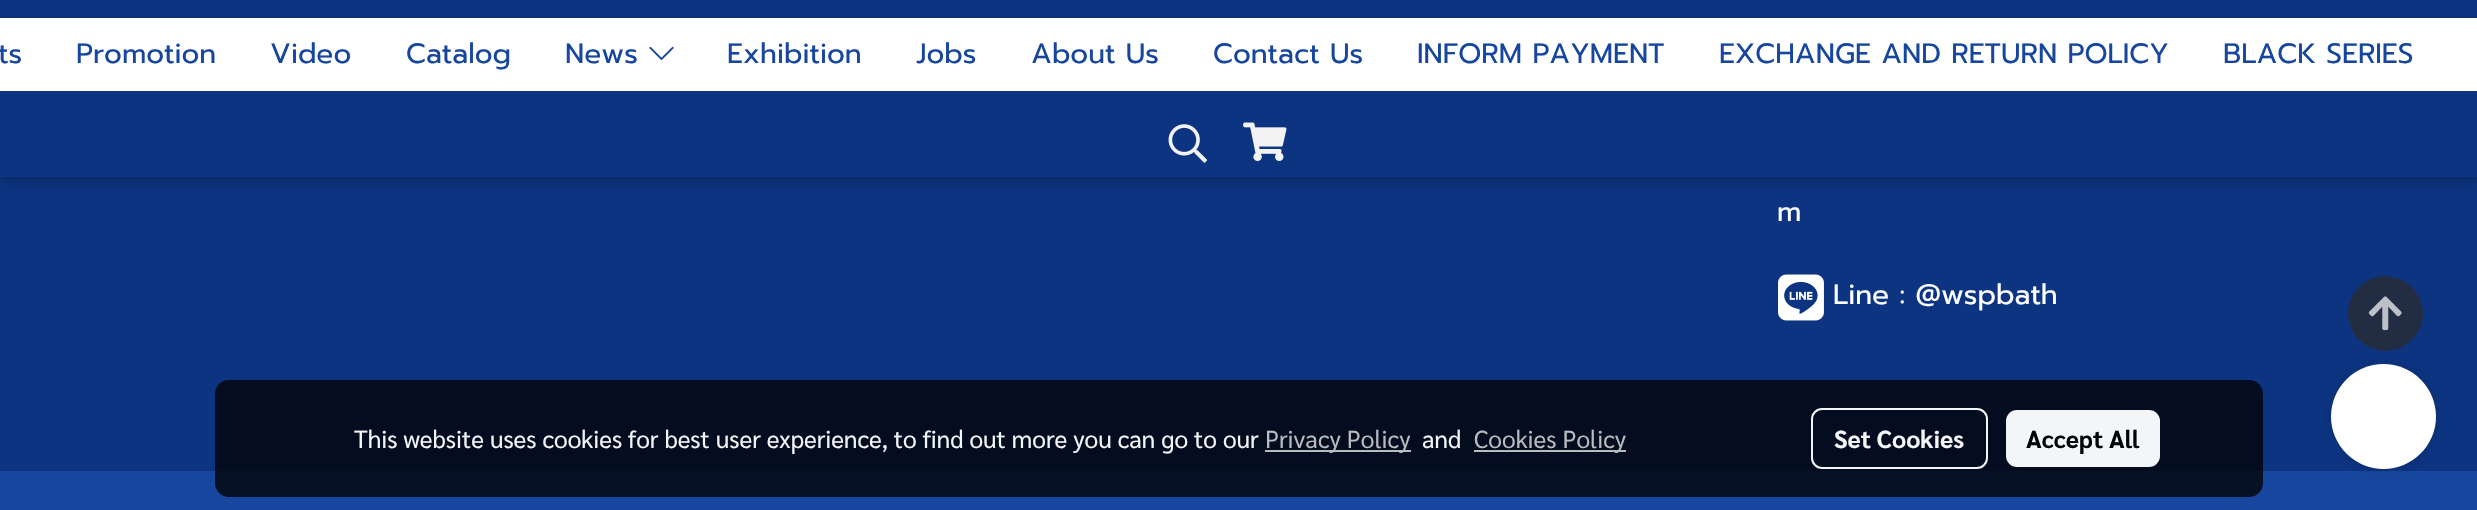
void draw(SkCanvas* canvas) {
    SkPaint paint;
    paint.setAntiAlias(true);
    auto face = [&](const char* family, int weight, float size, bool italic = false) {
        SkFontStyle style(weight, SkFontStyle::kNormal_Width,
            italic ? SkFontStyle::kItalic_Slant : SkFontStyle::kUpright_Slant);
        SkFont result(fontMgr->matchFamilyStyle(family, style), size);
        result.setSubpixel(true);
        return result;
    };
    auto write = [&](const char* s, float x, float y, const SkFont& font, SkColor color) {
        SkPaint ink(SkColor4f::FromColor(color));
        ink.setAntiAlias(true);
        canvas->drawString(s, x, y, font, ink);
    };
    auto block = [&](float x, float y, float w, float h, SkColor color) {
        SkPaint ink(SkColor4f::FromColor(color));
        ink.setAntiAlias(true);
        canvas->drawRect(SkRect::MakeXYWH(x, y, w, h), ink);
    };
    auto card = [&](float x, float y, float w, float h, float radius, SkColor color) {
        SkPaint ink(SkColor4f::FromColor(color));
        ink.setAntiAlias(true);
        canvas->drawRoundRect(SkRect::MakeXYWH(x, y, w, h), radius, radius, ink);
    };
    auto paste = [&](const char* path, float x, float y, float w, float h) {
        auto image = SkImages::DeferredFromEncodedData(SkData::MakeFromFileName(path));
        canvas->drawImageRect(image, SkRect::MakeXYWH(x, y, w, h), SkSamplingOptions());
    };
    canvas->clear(SkColorSetRGB(12, 52, 129));
    paint.setColor(SkColorSetARGB(31, 0, 0, 0));
    paint.setMaskFilter(SkMaskFilter::MakeBlur(kNormal_SkBlurStyle, 9));
    canvas->drawRect(SkRect::MakeXYWH(0, 4, 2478, 176), paint);
    paint.setMaskFilter(nullptr);
    paint.setColor(SkColorSetARGB(41, 0, 0, 0));
    paint.setMaskFilter(SkMaskFilter::MakeBlur(kNormal_SkBlurStyle, 4.5f));
    canvas->drawRect(SkRect::MakeXYWH(0, 4, 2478, 176), paint);
    paint.setMaskFilter(nullptr);
    block(0, 0, 2477, 177, SkColorSetRGB(12, 52, 129));
    block(0, 18, 49, 73, SK_ColorWHITE);
    auto kFont1 = face("Prompt", 400, 28);
    write("ts", -2, 63, kFont1, SkColorSetRGB(23, 70, 158));
    block(49, 18, 196, 73, SK_ColorWHITE);
    write("Promotion", 76, 63, kFont1, SkColorSetRGB(23, 70, 158));
    block(245, 18, 135, 73, SK_ColorWHITE);
    write("Video", 270, 63, kFont1, SkColorSetRGB(23, 70, 158));
    block(380, 18, 159, 73, SK_ColorWHITE);
    write("Catalog", 406, 63, kFont1, SkColorSetRGB(23, 70, 158));
    block(539, 18, 163, 73, SK_ColorWHITE);
    write("News", 565, 63, kFont1, SkColorSetRGB(23, 70, 158));
    paste("pic1.png", 649, 46, 25, 14);
    block(702, 18, 187, 73, SK_ColorWHITE);
    write("Exhibition", 727, 63, kFont1, SkColorSetRGB(23, 70, 158));
    block(889, 18, 116, 73, SK_ColorWHITE);
    write("Jobs", 916, 63, kFont1, SkColorSetRGB(23, 70, 158));
    block(1005, 18, 182, 73, SK_ColorWHITE);
    write("About Us", 1031, 63, kFont1, SkColorSetRGB(23, 70, 158));
    block(1187, 18, 204, 73, SK_ColorWHITE);
    write("Contact Us", 1213, 63, kFont1, SkColorSetRGB(23, 70, 158));
    block(1391, 18, 301, 73, SK_ColorWHITE);
    write("INFORM PAYMENT", 1417, 63, kFont1, SkColorSetRGB(23, 70, 158));
    block(1692, 18, 506, 73, SK_ColorWHITE);
    write("EXCHANGE AND RETURN POLICY", 1719, 63, kFont1, SkColorSetRGB(23, 70, 158));
    block(2198, 18, 279, 73, SK_ColorWHITE);
    write("BLACK SERIES", 2223, 63, kFont1, SkColorSetRGB(23, 70, 158));
    paste("pic2.png", 1168, 124, 39, 39);
    paste("pic3.png", 1243, 122, 44, 39);
    write("m", 1777, 221, kFont1, SK_ColorWHITE);
    paste("pic4.png", 1778, 274, 46, 47);
    write("Line : @wspbath", 1833, 304, kFont1, SK_ColorWHITE);
    block(0, 471, 2477, 39, SkColorSetRGB(23, 70, 158));
    paint.setColor(SkColorSetARGB(36, 0, 0, 0));
    paint.setMaskFilter(SkMaskFilter::MakeBlur(kNormal_SkBlurStyle, 6));
    canvas->drawRoundRect(SkRect::MakeXYWH(2331, 364, 105, 105), 52.5f, 52.5f, paint);
    paint.setMaskFilter(nullptr);
    paint.setColor(SkColorSetRGB(34, 45, 68));
    canvas->drawPath(SkPathBuilder().moveTo(2385, 276).cubicTo(2365, 276, 2348, 293, 2348, 313).cubicTo(2348, 334, 2365, 351, 2385, 351).cubicTo(2406, 351, 2423, 334, 2423, 313).cubicTo(2423, 293, 2406, 276, 2385, 276).close().detach(), paint);
    paste("pic5.png", 2368, 296, 34, 35);
    card(215, 380, 2048, 117, 14, SkColorSetARGB(194, 0, 0, 0));
    auto kFont2 = face("Sarabun", 400, 24.5f);
    write("This website uses cookies for best user experience, to find out more you can go to our", 354, 448, kFont2, SkColorSetRGB(243, 245, 249));
    block(1265, 450, 146, 2, SkColorSetRGB(185, 187, 191));
    write("Privacy Policy", 1265, 448, kFont2, SkColorSetRGB(185, 187, 191));
    write("and", 1422, 448, kFont2, SkColorSetRGB(243, 245, 249));
    block(1474, 450, 152, 2, SkColorSetRGB(185, 187, 191));
    write("Cookies Policy", 1474, 448, kFont2, SkColorSetRGB(185, 187, 191));
    paint.setStyle(SkPaint::kStroke_Style);
    paint.setStrokeWidth(2);
    paint.setColor(SkColorSetRGB(243, 245, 249));
    canvas->drawRoundRect(SkRect::MakeXYWH(1812, 409, 175, 59), 10, 10, paint);
    auto kFont3 = face("Sarabun", 700, 24.5f);
    write("Set Cookies", 1834, 448, kFont3, SkColorSetRGB(243, 245, 249));
    card(2006, 410, 154, 57, 11, SkColorSetRGB(243, 245, 249));
    write("Accept All", 2026, 448, kFont3, SkColorSetRGB(1, 3, 6));
    paint.setStyle(SkPaint::kFill_Style);
    paint.setColor(SK_ColorWHITE);
    canvas->drawCircle(2383.5f, 416.5f, 52.5f, paint);
}
